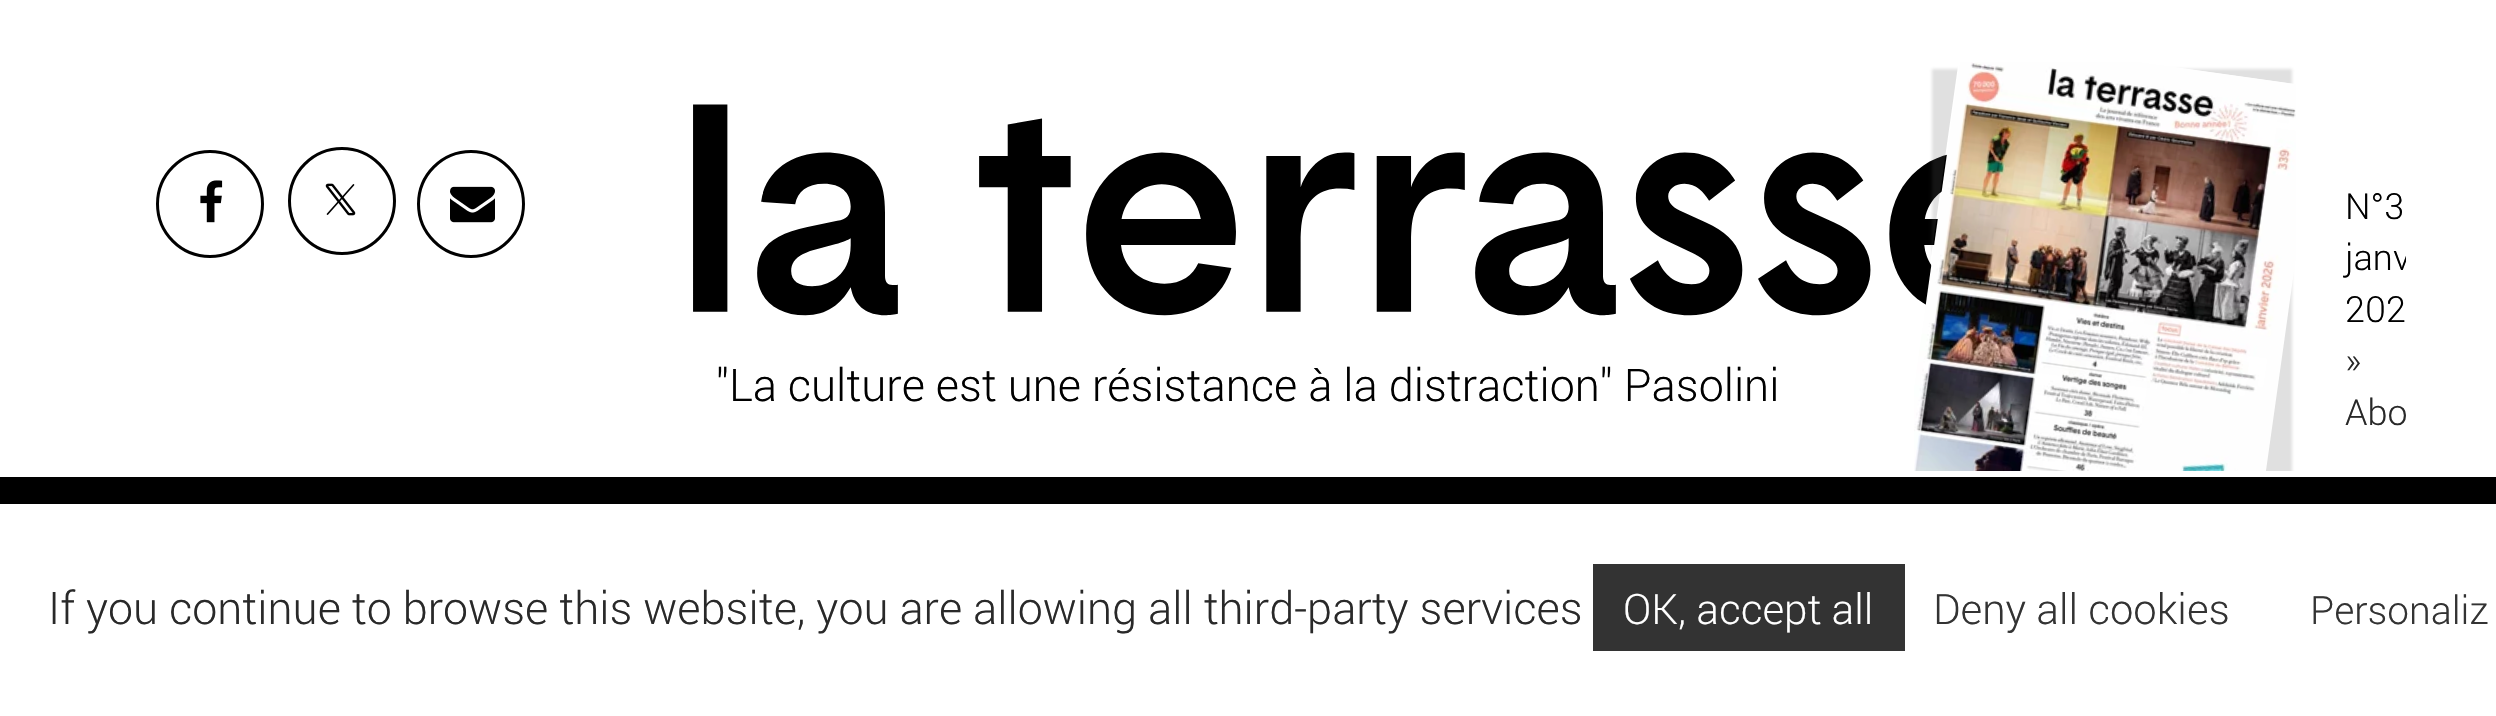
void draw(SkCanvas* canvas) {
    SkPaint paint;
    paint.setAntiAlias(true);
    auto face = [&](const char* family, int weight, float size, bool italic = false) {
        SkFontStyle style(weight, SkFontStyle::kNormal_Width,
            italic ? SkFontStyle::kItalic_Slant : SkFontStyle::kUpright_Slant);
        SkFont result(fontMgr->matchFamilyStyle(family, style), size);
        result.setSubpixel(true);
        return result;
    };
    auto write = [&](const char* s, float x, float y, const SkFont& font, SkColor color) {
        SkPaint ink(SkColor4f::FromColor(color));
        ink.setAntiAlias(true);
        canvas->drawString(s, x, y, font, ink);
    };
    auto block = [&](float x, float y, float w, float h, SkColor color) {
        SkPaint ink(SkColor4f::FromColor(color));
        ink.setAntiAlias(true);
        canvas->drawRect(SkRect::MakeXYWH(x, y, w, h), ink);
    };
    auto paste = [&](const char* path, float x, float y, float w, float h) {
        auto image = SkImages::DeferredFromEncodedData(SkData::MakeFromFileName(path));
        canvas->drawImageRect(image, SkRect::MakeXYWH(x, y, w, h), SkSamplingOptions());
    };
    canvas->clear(SK_ColorWHITE);
    paint.setStyle(SkPaint::kStroke_Style);
    paint.setStrokeWidth(3);
    paint.setColor(SK_ColorBLACK);
    canvas->drawCircle(210, 204, 52.5f, paint);
    paste("pic1.png", 200, 180, 23, 43);
    canvas->drawCircle(342, 201, 52.5f, paint);
    paste("pic2.png", 325, 183, 31, 33);
    canvas->drawCircle(471, 204, 52.5f, paint);
    paste("pic3.png", 450, 186, 45, 37);
    paste("pic4.png", 693, 104, 1254, 212);
    auto kFont1 = face("Roboto", 300, 45);
    write("\"La culture est une résistance à la distraction\" Pasolini", 716, 401, kFont1, SK_ColorBLACK);
    canvas->save();
    canvas->clipRect(SkRect::MakeXYWH(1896, 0, 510, 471));
    canvas->clipPath(SkPathBuilder(SkPathFillType::kEvenOdd).moveTo(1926, 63).lineTo(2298, 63).lineTo(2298, 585).lineTo(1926, 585).close().moveTo(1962, 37.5f).lineTo(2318.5f, 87.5f).lineTo(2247, 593.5f).lineTo(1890.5f, 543.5f).close().detach(), true);
    paint.setStyle(SkPaint::kFill_Style);
    paint.setColor(SkColorSetARGB(51, 101, 101, 101));
    paint.setMaskFilter(SkMaskFilter::MakeBlur(kNormal_SkBlurStyle, 1.5f));
    canvas->drawRect(SkRect::MakeXYWH(1932, 69, 360, 510), paint);
    paint.setMaskFilter(nullptr);
    canvas->restore();
    paste("pic5.png", 1914, 62, 382, 409);
    auto kFont2 = face("Roboto", 300, 36);
    write("N°3", 2345, 219, kFont2, SK_ColorBLACK);
    canvas->save();
    canvas->clipRect(SkRect::MakeXYWH(1896, 0, 510, 471));
    write("janv", 2345, 270, kFont2, SK_ColorBLACK);
    canvas->restore();
    write("202", 2345, 322, kFont2, SK_ColorBLACK);
    write("»", 2345, 373, kFont2, SkColorSetRGB(41, 41, 41));
    write("Abo", 2345, 425, kFont2, SkColorSetRGB(41, 41, 41));
    block(0, 477, 2496, 27, SK_ColorBLACK);
    write("If you continue to browse this website, you are allowing all third-party services", 48, 624, kFont1, SkColorSetRGB(41, 41, 41));
    block(1593, 564, 312, 87, SkColorSetRGB(51, 51, 51));
    auto kFont3 = face("Roboto", 300, 42);
    write("OK, accept all", 1623, 624, kFont3, SK_ColorWHITE);
    write("Deny all cookies", 1933, 624, kFont3, SkColorSetRGB(51, 51, 51));
    auto kFont4 = face("Roboto", 300, 39);
    write("Personaliz", 2310, 624, kFont4, SkColorSetRGB(51, 51, 51));
}
